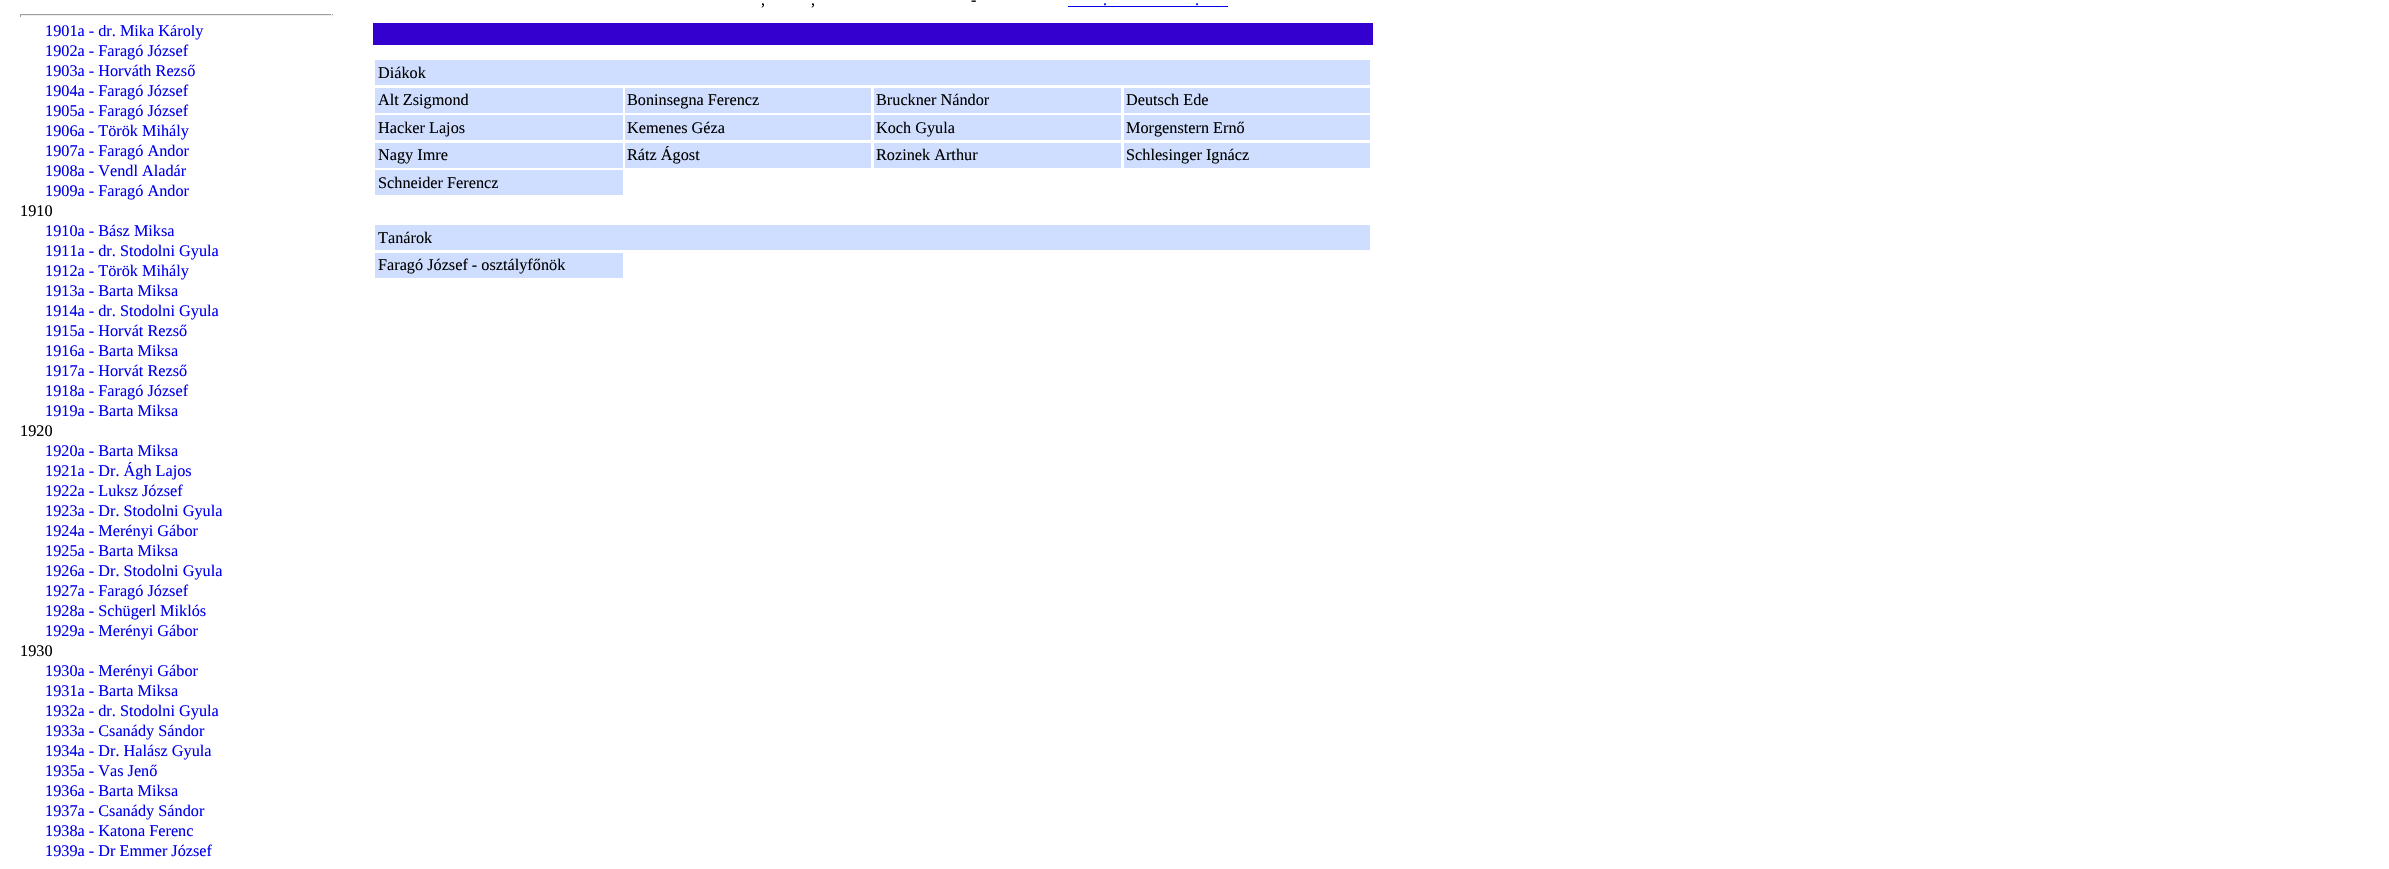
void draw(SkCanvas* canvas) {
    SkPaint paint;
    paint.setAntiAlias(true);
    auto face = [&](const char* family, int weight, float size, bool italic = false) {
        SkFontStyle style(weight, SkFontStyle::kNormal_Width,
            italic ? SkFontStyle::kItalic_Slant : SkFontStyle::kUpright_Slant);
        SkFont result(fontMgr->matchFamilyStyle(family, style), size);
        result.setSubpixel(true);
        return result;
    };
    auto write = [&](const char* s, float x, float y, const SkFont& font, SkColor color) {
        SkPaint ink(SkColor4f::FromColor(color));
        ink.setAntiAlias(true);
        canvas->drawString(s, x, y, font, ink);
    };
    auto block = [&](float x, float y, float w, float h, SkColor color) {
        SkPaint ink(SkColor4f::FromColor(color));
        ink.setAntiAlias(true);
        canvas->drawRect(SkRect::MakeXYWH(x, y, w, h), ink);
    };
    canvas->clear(SK_ColorWHITE);
    block(20, 14, 313, 1, SkColorSetRGB(159, 159, 159));
    block(331, 14, 1, 3, SkColorSetRGB(238, 238, 238));
    block(20, 15, 313, 1, SkColorSetRGB(238, 238, 238));
    block(20, 14, 1, 3, SkColorSetRGB(159, 159, 159));
    canvas->save();
    canvas->clipRect(SkRect::MakeXYWH(20, 25, 313, 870));
    auto kFont1 = face("Liberation Serif", 400, 16.25f);
    write("1901a - dr. Mika Károly", 45, 36, kFont1, SkColorSetRGB(0, 0, 238));
    canvas->restore();
    write("1902a - Faragó József", 45, 56, kFont1, SkColorSetRGB(0, 0, 238));
    write("1903a - Horváth Rezső", 45, 76, kFont1, SkColorSetRGB(0, 0, 238));
    write("1904a - Faragó József", 45, 96, kFont1, SkColorSetRGB(0, 0, 238));
    write("1905a - Faragó József", 45, 116, kFont1, SkColorSetRGB(0, 0, 238));
    write("1906a - Török Mihály", 45, 136, kFont1, SkColorSetRGB(0, 0, 238));
    write("1907a - Faragó Andor", 45, 156, kFont1, SkColorSetRGB(0, 0, 238));
    write("1908a - Vendl Aladár", 45, 176, kFont1, SkColorSetRGB(0, 0, 238));
    write("1909a - Faragó Andor", 45, 196, kFont1, SkColorSetRGB(0, 0, 238));
    write("1910", 20, 216, kFont1, SK_ColorBLACK);
    write("1910a - Bász Miksa", 45, 236, kFont1, SkColorSetRGB(0, 0, 238));
    write("1911a - dr. Stodolni Gyula", 45, 256, kFont1, SkColorSetRGB(0, 0, 238));
    write("1912a - Török Mihály", 45, 276, kFont1, SkColorSetRGB(0, 0, 238));
    write("1913a - Barta Miksa", 45, 296, kFont1, SkColorSetRGB(0, 0, 238));
    write("1914a - dr. Stodolni Gyula", 45, 316, kFont1, SkColorSetRGB(0, 0, 238));
    write("1915a - Horvát Rezső", 45, 336, kFont1, SkColorSetRGB(0, 0, 238));
    write("1916a - Barta Miksa", 45, 356, kFont1, SkColorSetRGB(0, 0, 238));
    write("1917a - Horvát Rezső", 45, 376, kFont1, SkColorSetRGB(0, 0, 238));
    write("1918a - Faragó József", 45, 396, kFont1, SkColorSetRGB(0, 0, 238));
    write("1919a - Barta Miksa", 45, 416, kFont1, SkColorSetRGB(0, 0, 238));
    write("1920", 20, 436, kFont1, SK_ColorBLACK);
    write("1920a - Barta Miksa", 45, 456, kFont1, SkColorSetRGB(0, 0, 238));
    write("1921a - Dr. Ágh Lajos", 45, 476, kFont1, SkColorSetRGB(0, 0, 238));
    write("1922a - Luksz József", 45, 496, kFont1, SkColorSetRGB(0, 0, 238));
    write("1923a - Dr. Stodolni Gyula", 45, 516, kFont1, SkColorSetRGB(0, 0, 238));
    write("1924a - Merényi Gábor", 45, 536, kFont1, SkColorSetRGB(0, 0, 238));
    write("1925a - Barta Miksa", 45, 556, kFont1, SkColorSetRGB(0, 0, 238));
    write("1926a - Dr. Stodolni Gyula", 45, 576, kFont1, SkColorSetRGB(0, 0, 238));
    write("1927a - Faragó József", 45, 596, kFont1, SkColorSetRGB(0, 0, 238));
    write("1928a - Schügerl Miklós", 45, 616, kFont1, SkColorSetRGB(0, 0, 238));
    write("1929a - Merényi Gábor", 45, 636, kFont1, SkColorSetRGB(0, 0, 238));
    write("1930", 20, 656, kFont1, SK_ColorBLACK);
    write("1930a - Merényi Gábor", 45, 676, kFont1, SkColorSetRGB(0, 0, 238));
    write("1931a - Barta Miksa", 45, 696, kFont1, SkColorSetRGB(0, 0, 238));
    write("1932a - dr. Stodolni Gyula", 45, 716, kFont1, SkColorSetRGB(0, 0, 238));
    write("1933a - Csanády Sándor", 45, 736, kFont1, SkColorSetRGB(0, 0, 238));
    write("1934a - Dr. Halász Gyula", 45, 756, kFont1, SkColorSetRGB(0, 0, 238));
    write("1935a - Vas Jenő", 45, 776, kFont1, SkColorSetRGB(0, 0, 238));
    write("1936a - Barta Miksa", 45, 796, kFont1, SkColorSetRGB(0, 0, 238));
    write("1937a - Csanády Sándor", 45, 816, kFont1, SkColorSetRGB(0, 0, 238));
    write("1938a - Katona Ferenc", 45, 836, kFont1, SkColorSetRGB(0, 0, 238));
    write("1939a - Dr Emmer József", 45, 856, kFont1, SkColorSetRGB(0, 0, 238));
    write("-", 971, 5, kFont1, SK_ColorBLACK);
    write(",", 761, 5, kFont1, SK_ColorBLACK);
    write(",", 811, 5, kFont1, SK_ColorBLACK);
    write(".", 1103, 5, kFont1, SkColorSetRGB(0, 0, 238));
    block(1068, 6, 160, 1, SkColorSetRGB(0, 0, 238));
    write(".", 1195, 5, kFont1, SkColorSetRGB(0, 0, 238));
    block(373, 23, 1000, 22, SkColorSetRGB(51, 0, 208));
    block(375, 60, 995, 25, SkColorSetRGB(207, 222, 255));
    write("Diákok", 378, 78, kFont1, SK_ColorBLACK);
    block(375, 88, 248, 25, SkColorSetRGB(207, 222, 255));
    write("Alt Zsigmond", 378, 105, kFont1, SK_ColorBLACK);
    block(625, 88, 246, 25, SkColorSetRGB(207, 222, 255));
    write("Boninsegna Ferencz", 627, 105, kFont1, SK_ColorBLACK);
    block(874, 88, 247, 25, SkColorSetRGB(207, 222, 255));
    write("Bruckner Nándor", 876, 105, kFont1, SK_ColorBLACK);
    block(1124, 88, 246, 25, SkColorSetRGB(207, 222, 255));
    write("Deutsch Ede", 1126, 105, kFont1, SK_ColorBLACK);
    block(375, 115, 248, 25, SkColorSetRGB(207, 222, 255));
    write("Hacker Lajos", 378, 133, kFont1, SK_ColorBLACK);
    block(625, 115, 246, 25, SkColorSetRGB(207, 222, 255));
    write("Kemenes Géza", 627, 133, kFont1, SK_ColorBLACK);
    block(874, 115, 247, 25, SkColorSetRGB(207, 222, 255));
    write("Koch Gyula", 876, 133, kFont1, SK_ColorBLACK);
    block(1124, 115, 246, 25, SkColorSetRGB(207, 222, 255));
    write("Morgenstern Ernő", 1126, 133, kFont1, SK_ColorBLACK);
    block(375, 143, 248, 25, SkColorSetRGB(207, 222, 255));
    write("Nagy Imre", 378, 160, kFont1, SK_ColorBLACK);
    block(625, 143, 246, 25, SkColorSetRGB(207, 222, 255));
    write("Rátz Ágost", 627, 160, kFont1, SK_ColorBLACK);
    block(874, 143, 247, 25, SkColorSetRGB(207, 222, 255));
    write("Rozinek Arthur", 876, 160, kFont1, SK_ColorBLACK);
    block(1124, 143, 246, 25, SkColorSetRGB(207, 222, 255));
    write("Schlesinger Ignácz", 1126, 160, kFont1, SK_ColorBLACK);
    block(375, 170, 248, 25, SkColorSetRGB(207, 222, 255));
    write("Schneider Ferencz", 378, 188, kFont1, SK_ColorBLACK);
    block(375, 225, 995, 25, SkColorSetRGB(207, 222, 255));
    write("Tanárok", 378, 243, kFont1, SK_ColorBLACK);
    block(375, 253, 248, 25, SkColorSetRGB(207, 222, 255));
    write("Faragó József - osztályfőnök", 378, 270, kFont1, SK_ColorBLACK);
}
